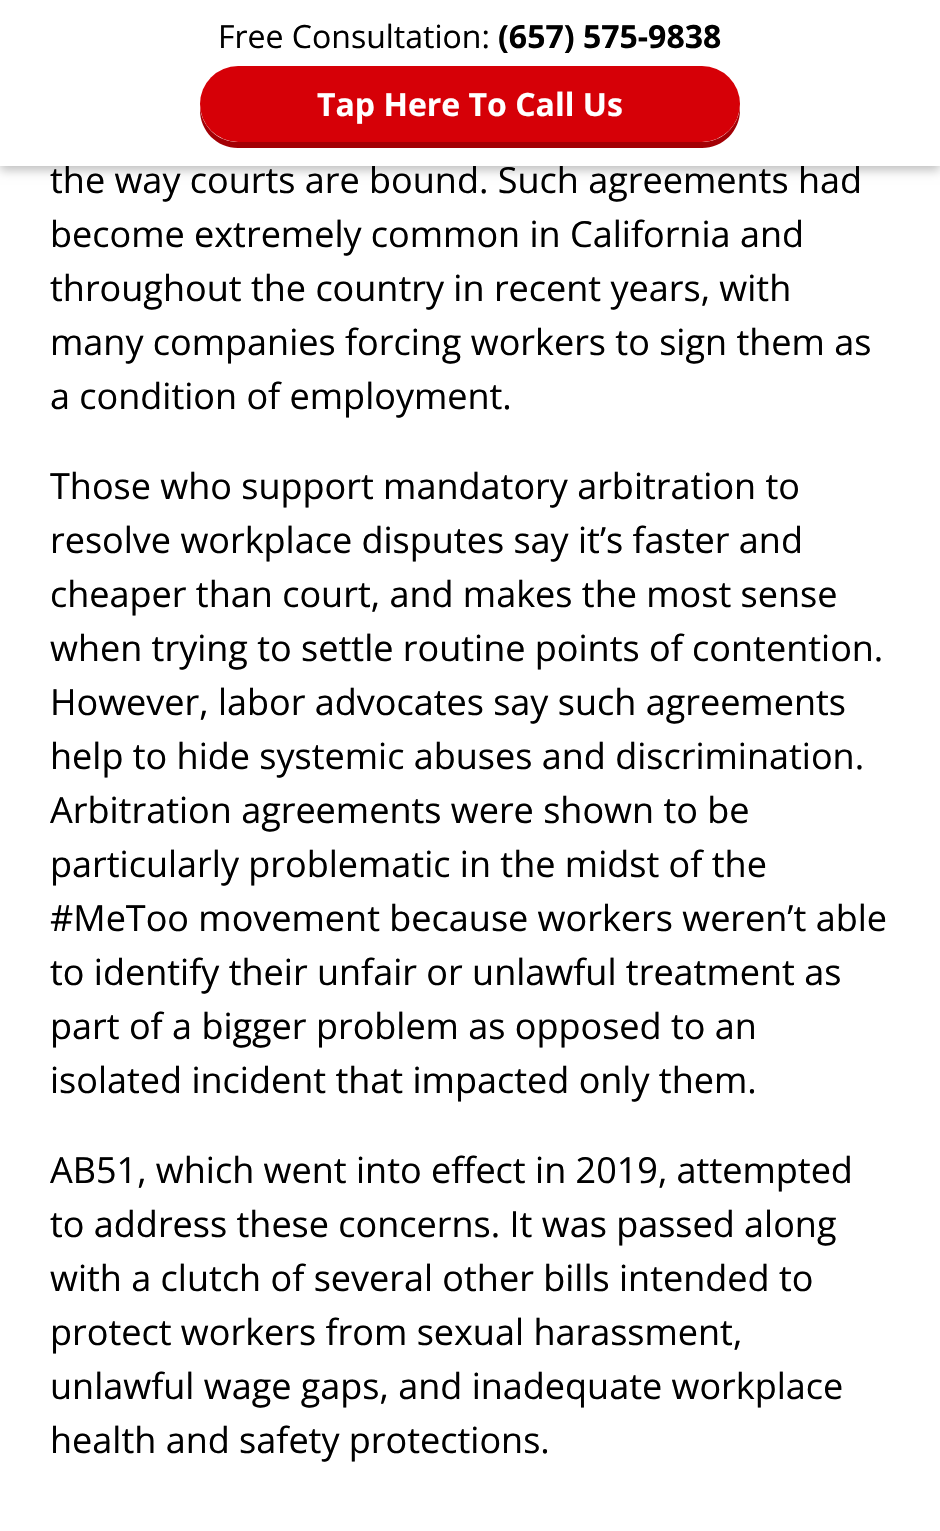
void draw(SkCanvas* canvas) {
    SkPaint paint;
    paint.setAntiAlias(true);
    auto face = [&](const char* family, int weight, float size, bool italic = false) {
        SkFontStyle style(weight, SkFontStyle::kNormal_Width,
            italic ? SkFontStyle::kItalic_Slant : SkFontStyle::kUpright_Slant);
        SkFont result(fontMgr->matchFamilyStyle(family, style), size);
        result.setSubpixel(true);
        return result;
    };
    auto write = [&](const char* s, float x, float y, const SkFont& font, SkColor color) {
        SkPaint ink(SkColor4f::FromColor(color));
        ink.setAntiAlias(true);
        canvas->drawString(s, x, y, font, ink);
    };
    auto block = [&](float x, float y, float w, float h, SkColor color) {
        SkPaint ink(SkColor4f::FromColor(color));
        ink.setAntiAlias(true);
        canvas->drawRect(SkRect::MakeXYWH(x, y, w, h), ink);
    };
    auto card = [&](float x, float y, float w, float h, float radius, SkColor color) {
        SkPaint ink(SkColor4f::FromColor(color));
        ink.setAntiAlias(true);
        canvas->drawRoundRect(SkRect::MakeXYWH(x, y, w, h), radius, radius, ink);
    };
    canvas->clear(SK_ColorWHITE);
    paint.setColor(SkColorSetARGB(66, 0, 0, 0));
    paint.setMaskFilter(SkMaskFilter::MakeBlur(kNormal_SkBlurStyle, 5));
    canvas->drawRect(SkRect::MakeXYWH(0, 4, 940, 166), paint);
    paint.setMaskFilter(nullptr);
    auto kFont1 = face("Open Sans", 400, 36);
    write("the way courts are bound. Such agreements had", 50, 193, kFont1, SK_ColorBLACK);
    block(0, 0, 940, 166, SK_ColorWHITE);
    auto kFont2 = face("Open Sans", 400, 32);
    write("Free Consultation:", 218, 48, kFont2, SK_ColorBLACK);
    auto kFont3 = face("Open Sans", 700, 32);
    write("(657) 575-9838", 498, 48, kFont3, SK_ColorBLACK);
    paint.setColor(SkColorSetRGB(163, 0, 5));
    canvas->drawPath(SkPathBuilder().moveTo(200, 107).lineTo(200, 110).cubicTo(200, 131, 217, 148, 238, 148).lineTo(702, 148).cubicTo(723, 148, 740, 131, 740, 110).lineTo(740, 107).cubicTo(738, 127, 722, 142, 702, 142).lineTo(238, 142).cubicTo(218, 142, 202, 127, 200, 107).close().detach(), paint);
    card(200, 66, 540, 76, 38, SkColorSetRGB(214, 0, 7));
    write("Tap Here To Call Us", 317, 116, kFont3, SK_ColorWHITE);
    write("become extremely common in California and", 50, 247, kFont1, SK_ColorBLACK);
    write("throughout the country in recent years, with", 50, 301, kFont1, SK_ColorBLACK);
    write("many companies forcing workers to sign them as", 50, 355, kFont1, SK_ColorBLACK);
    write("a condition of employment.", 50, 409, kFont1, SK_ColorBLACK);
    write("Those who support mandatory arbitration to", 50, 499, kFont1, SK_ColorBLACK);
    write("resolve workplace disputes say it’s faster and", 50, 553, kFont1, SK_ColorBLACK);
    write("cheaper than court, and makes the most sense", 50, 607, kFont1, SK_ColorBLACK);
    write("when trying to settle routine points of contention.", 50, 661, kFont1, SK_ColorBLACK);
    write("However, labor advocates say such agreements", 50, 715, kFont1, SK_ColorBLACK);
    write("help to hide systemic abuses and discrimination.", 50, 769, kFont1, SK_ColorBLACK);
    write("Arbitration agreements were shown to be", 50, 823, kFont1, SK_ColorBLACK);
    write("particularly problematic in the midst of the", 50, 877, kFont1, SK_ColorBLACK);
    write("#MeToo movement because workers weren’t able", 50, 931, kFont1, SK_ColorBLACK);
    write("to identify their unfair or unlawful treatment as", 50, 985, kFont1, SK_ColorBLACK);
    write("part of a bigger problem as opposed to an", 50, 1039, kFont1, SK_ColorBLACK);
    write("isolated incident that impacted only them.", 50, 1093, kFont1, SK_ColorBLACK);
    write("AB51, which went into effect in 2019, attempted", 50, 1183, kFont1, SK_ColorBLACK);
    write("to address these concerns. It was passed along", 50, 1237, kFont1, SK_ColorBLACK);
    write("with a clutch of several other bills intended to", 50, 1291, kFont1, SK_ColorBLACK);
    write("protect workers from sexual harassment,", 50, 1345, kFont1, SK_ColorBLACK);
    write("unlawful wage gaps, and inadequate workplace", 50, 1399, kFont1, SK_ColorBLACK);
    write("health and safety protections.", 50, 1453, kFont1, SK_ColorBLACK);
}
